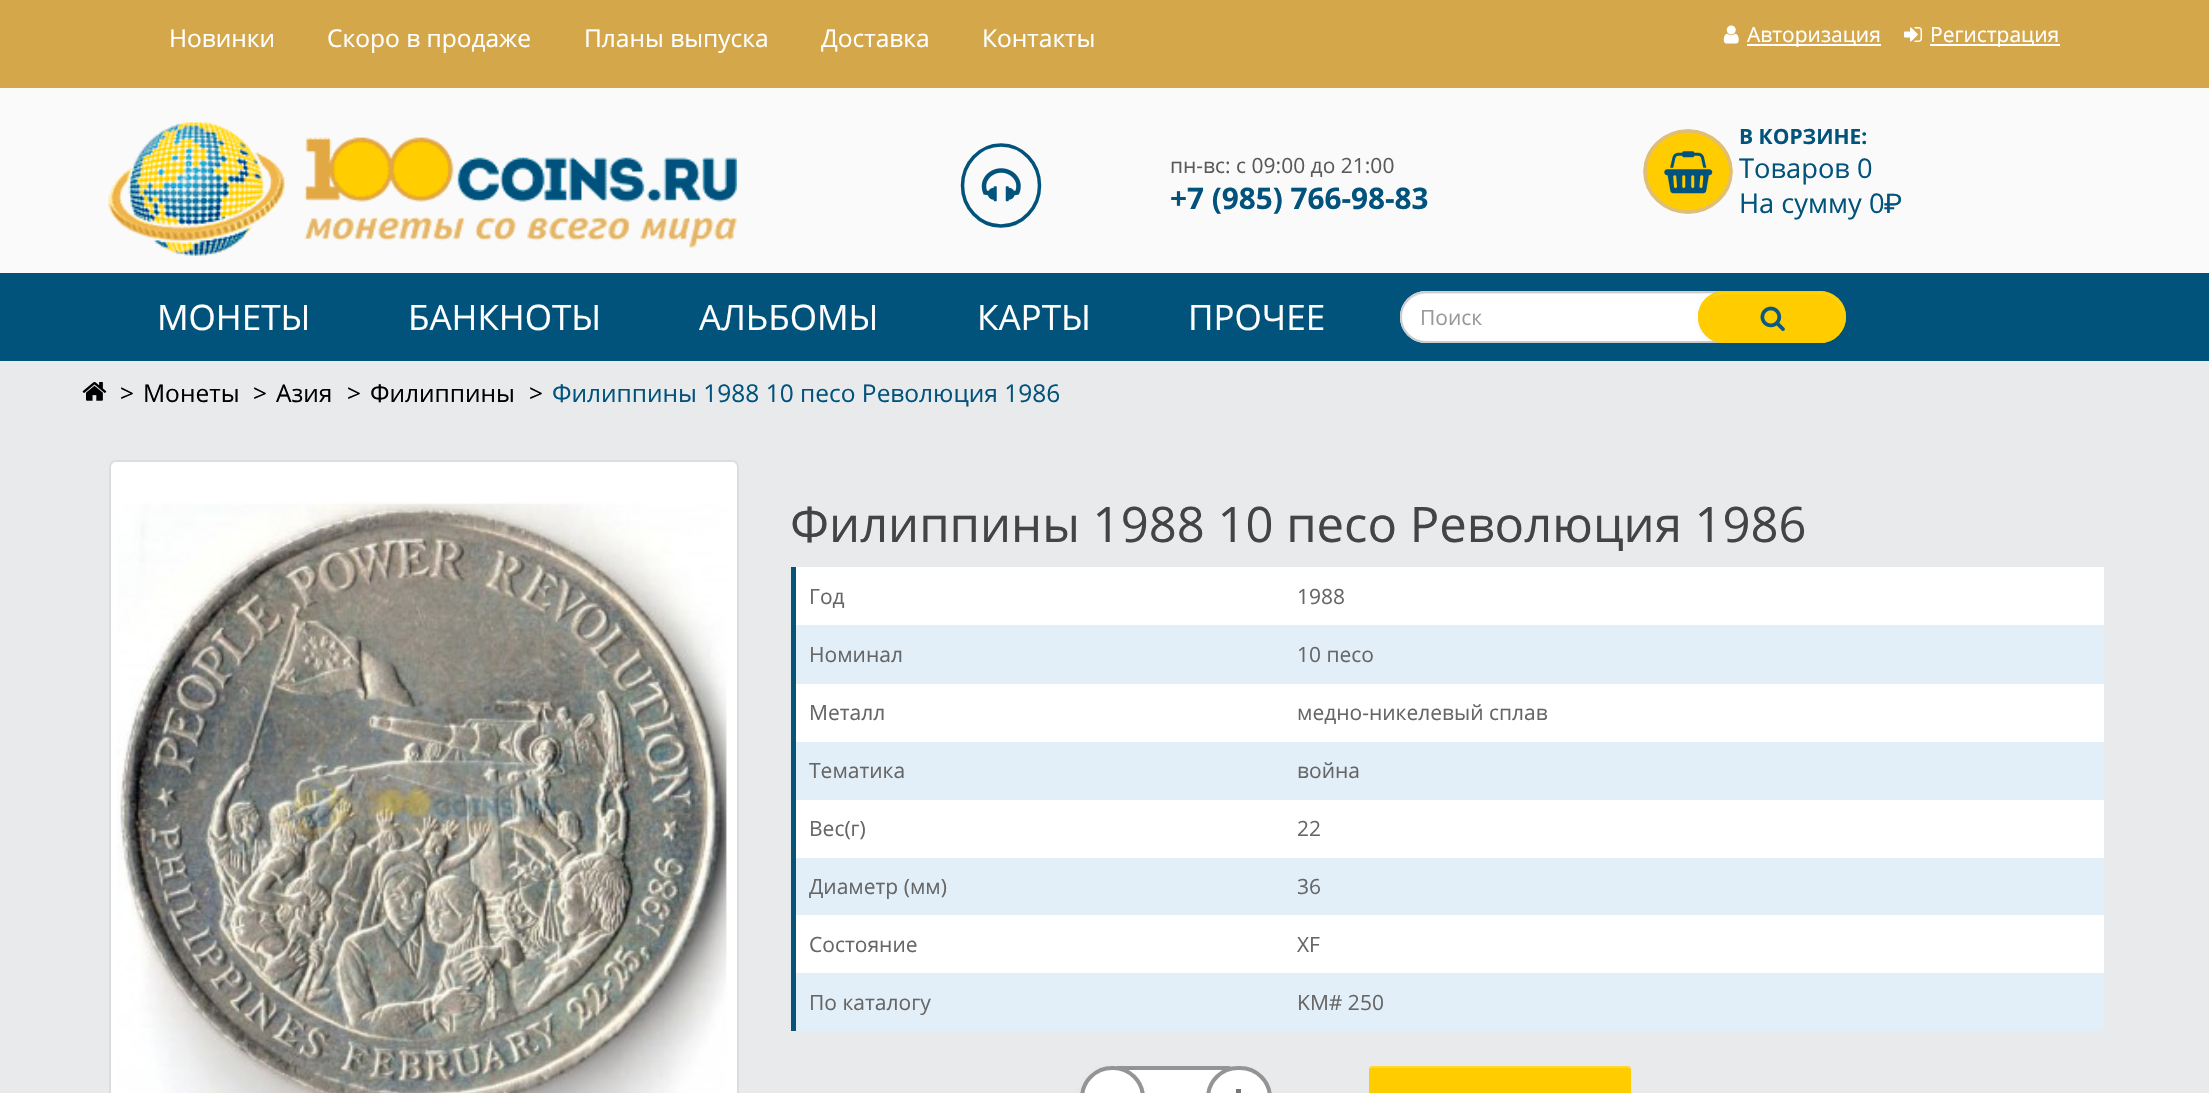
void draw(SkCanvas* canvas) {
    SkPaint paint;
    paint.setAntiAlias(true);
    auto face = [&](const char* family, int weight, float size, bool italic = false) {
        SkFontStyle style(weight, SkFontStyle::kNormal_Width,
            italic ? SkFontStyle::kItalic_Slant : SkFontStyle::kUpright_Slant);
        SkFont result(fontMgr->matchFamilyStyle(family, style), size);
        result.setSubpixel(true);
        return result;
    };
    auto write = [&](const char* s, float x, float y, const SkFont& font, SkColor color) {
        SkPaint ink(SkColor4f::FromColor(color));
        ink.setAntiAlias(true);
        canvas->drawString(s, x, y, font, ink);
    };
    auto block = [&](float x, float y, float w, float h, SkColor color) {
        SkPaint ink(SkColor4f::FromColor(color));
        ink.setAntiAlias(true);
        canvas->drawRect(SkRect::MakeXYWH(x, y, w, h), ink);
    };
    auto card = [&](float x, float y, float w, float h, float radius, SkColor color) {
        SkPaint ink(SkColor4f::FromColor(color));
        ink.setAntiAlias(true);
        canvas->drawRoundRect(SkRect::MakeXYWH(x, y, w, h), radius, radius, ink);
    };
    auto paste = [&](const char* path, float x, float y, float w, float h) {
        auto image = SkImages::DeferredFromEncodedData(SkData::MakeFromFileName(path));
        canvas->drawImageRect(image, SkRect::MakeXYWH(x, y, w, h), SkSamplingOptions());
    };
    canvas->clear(SkColorSetRGB(232, 234, 236));
    block(0, 0, 2209, 88, SkColorSetRGB(211, 167, 74));
    auto kFont1 = face("Open Sans", 400, 24.5f);
    write("Hовинки", 169, 47, kFont1, SK_ColorWHITE);
    write("Скоро в продаже", 327, 47, kFont1, SK_ColorWHITE);
    write("Планы выпуска", 584, 47, kFont1, SK_ColorWHITE);
    write("Доставка", 821, 47, kFont1, SK_ColorWHITE);
    write("Контакты", 982, 47, kFont1, SK_ColorWHITE);
    paste("pic1.png", 1723, 25, 16, 19);
    block(1747, 44, 134, 2, SK_ColorWHITE);
    auto kFont2 = face("Open Sans", 400, 21);
    write("Авторизация", 1747, 42, kFont2, SK_ColorWHITE);
    paste("pic2.png", 1904, 27, 18, 15);
    block(1930, 44, 130, 2, SK_ColorWHITE);
    write("Регистрация", 1930, 42, kFont2, SK_ColorWHITE);
    block(0, 88, 2209, 185, SkColorSetRGB(250, 250, 250));
    paste("pic3.png", 108, 122, 629, 134);
    paint.setStyle(SkPaint::kStroke_Style);
    paint.setStrokeWidth(3.5f);
    paint.setColor(SkColorSetRGB(2, 83, 123));
    canvas->drawPath(SkPathBuilder().moveTo(1001, 145).cubicTo(1022.5f, 145, 1039.5f, 163.5f, 1039.5f, 185.5f).cubicTo(1039.5f, 207.5f, 1022.5f, 226, 1001, 226).cubicTo(979.5f, 226, 962.5f, 207.5f, 962.5f, 185.5f).cubicTo(962.5f, 163.5f, 979.5f, 145, 1001, 145).close().detach(), paint);
    paste("pic4.png", 981, 168, 40, 34);
    write("пн-вс: с 09:00 до 21:00", 1170, 173, kFont2, SkColorSetRGB(90, 90, 90));
    auto kFont3 = face("Open Sans", 700, 29.75f);
    write("+7 (985) 766-98-83", 1170, 209, kFont3, SkColorSetRGB(2, 83, 123));
    paint.setStyle(SkPaint::kFill_Style);
    paint.setColor(SkColorSetRGB(255, 204, 0));
    canvas->drawOval(SkRect::MakeXYWH(1643.5f, 129.5f, 89, 84), paint);
    paint.setStyle(SkPaint::kStroke_Style);
    paint.setColor(SkColorSetRGB(222, 190, 121));
    canvas->drawPath(SkPathBuilder().moveTo(1688, 131).cubicTo(1711.5f, 131, 1731, 149.5f, 1731, 171.5f).cubicTo(1731, 193.5f, 1711.5f, 212, 1688, 212).cubicTo(1664, 212, 1645, 193.5f, 1645, 171.5f).cubicTo(1645, 149.5f, 1664, 131, 1688, 131).close().detach(), paint);
    paste("pic5.png", 1664, 151, 49, 43);
    auto kFont4 = face("Open Sans", 700, 21);
    write("В КОРЗИНЕ:", 1739, 144, kFont4, SkColorSetRGB(2, 83, 123));
    auto kFont5 = face("Open Sans", 400, 27.25f);
    write("Товаров 0", 1739, 178, kFont5, SkColorSetRGB(2, 83, 123));
    write("На сумму 0", 1739, 213, kFont5, SkColorSetRGB(2, 83, 123));
    auto kFont6 = face("Roboto", 400, 27.25f);
    write("₽", 1884, 213, kFont6, SkColorSetRGB(2, 83, 123));
    block(0, 273, 2209, 88, SkColorSetRGB(2, 83, 123));
    auto kFont7 = face("Open Sans", 400, 35);
    write("МОНЕТЫ", 157, 330, kFont7, SK_ColorWHITE);
    write("БАНКНОТЫ", 408, 330, kFont7, SK_ColorWHITE);
    write("АЛЬБОМЫ", 699, 330, kFont7, SK_ColorWHITE);
    write("КАРТЫ", 977, 330, kFont7, SK_ColorWHITE);
    write("ПРОЧЕЕ", 1188, 330, kFont7, SK_ColorWHITE);
    paint.setStyle(SkPaint::kFill_Style);
    paint.setColor(SK_ColorWHITE);
    canvas->drawPath(SkPathBuilder().moveTo(1426, 291).lineTo(1724, 291).lineTo(1724, 343).lineTo(1426, 343).cubicTo(1411.5f, 343, 1400, 331.5f, 1400, 317).cubicTo(1400, 302.5f, 1411.5f, 291, 1426, 291).close().detach(), paint);
    paint.setColor(SkColorSetRGB(236, 236, 236));
    canvas->drawPath(SkPathBuilder().moveTo(1426, 294).lineTo(1722, 294).lineTo(1722, 292).lineTo(1426, 292).cubicTo(1413, 292, 1402, 304, 1402, 317).cubicTo(1402, 305, 1413, 294, 1426, 294).close().detach(), paint);
    paint.setStyle(SkPaint::kStroke_Style);
    paint.setStrokeWidth(2);
    paint.setColor(SkColorSetRGB(204, 204, 204));
    canvas->drawPath(SkPathBuilder().moveTo(1426, 292).lineTo(1723, 292).lineTo(1723, 342).lineTo(1426, 342).cubicTo(1412, 342, 1401, 331, 1401, 317).cubicTo(1401, 303, 1412, 292, 1426, 292).close().detach(), paint);
    write("Поиск", 1420, 325, kFont2, SkColorSetRGB(153, 153, 153));
    paint.setStyle(SkPaint::kFill_Style);
    paint.setColor(SkColorSetARGB(13, 0, 0, 0));
    paint.setMaskFilter(SkMaskFilter::MakeBlur(kNormal_SkBlurStyle, 2));
    canvas->drawRoundRect(SkRect::MakeXYWH(1698, 292, 148, 53), 26.5f, 26.5f, paint);
    paint.setMaskFilter(nullptr);
    card(1698, 291, 148, 52, 26, SkColorSetRGB(255, 204, 0));
    paint.setColor(SkColorSetRGB(255, 214, 51));
    canvas->drawPath(SkPathBuilder().moveTo(1724, 294).lineTo(1820, 294).cubicTo(1834, 294, 1844, 305, 1844, 318).cubicTo(1844, 322, 1843, 325, 1842, 328).cubicTo(1844, 325, 1845, 321, 1845, 316).cubicTo(1845, 303, 1834, 292, 1820, 292).lineTo(1724, 292).cubicTo(1710, 292, 1699, 303, 1699, 316).lineTo(1699, 317).cubicTo(1699, 305, 1710, 294, 1724, 294).close().detach(), paint);
    paint.setStyle(SkPaint::kStroke_Style);
    paint.setColor(SkColorSetRGB(255, 204, 0));
    canvas->drawRoundRect(SkRect::MakeXYWH(1699, 292, 146, 50), 25, 25, paint);
    paste("pic6.png", 1760, 306, 25, 25);
    paste("pic7.png", 82, 382, 25, 19);
    write(">", 120, 402, kFont1, SK_ColorBLACK);
    write("Монеты", 143, 402, kFont1, SK_ColorBLACK);
    write(">", 253, 402, kFont1, SK_ColorBLACK);
    write("Азия", 276, 402, kFont1, SK_ColorBLACK);
    write(">", 347, 402, kFont1, SK_ColorBLACK);
    write("Филиппины", 370, 402, kFont1, SK_ColorBLACK);
    write(">", 529, 402, kFont1, SK_ColorBLACK);
    write("Филиппины 1988 10 песо Революция 1986", 552, 402, kFont1, SkColorSetRGB(2, 83, 123));
    paint.setStyle(SkPaint::kFill_Style);
    paint.setColor(SK_ColorWHITE);
    canvas->drawRoundRect(SkRect::MakeXYWH(110, 461, 628, 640), 6, 6, paint);
    paint.setStyle(SkPaint::kStroke_Style);
    paint.setColor(SkColorSetRGB(221, 221, 221));
    canvas->drawRoundRect(SkRect::MakeXYWH(110, 461, 628, 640), 6, 6, paint);
    paste("pic8.png", 117, 501, 611, 592);
    auto kFont8 = face("Open Sans", 400, 49);
    write("Филиппины 1988 10 песо Революция 1986", 790, 542, kFont8, SkColorSetRGB(68, 68, 68));
    block(791, 567, 5, 464, SkColorSetRGB(7, 84, 122));
    block(796, 567, 1308, 58, SK_ColorWHITE);
    write("Год", 809, 604, kFont2, SkColorSetRGB(102, 102, 102));
    write("1988", 1297, 604, kFont2, SkColorSetRGB(102, 102, 102));
    block(796, 625, 1308, 59, SkColorSetRGB(227, 239, 248));
    write("Номинал", 809, 662, kFont2, SkColorSetRGB(102, 102, 102));
    write("10 песо", 1297, 662, kFont2, SkColorSetRGB(102, 102, 102));
    block(796, 684, 1308, 58, SK_ColorWHITE);
    write("Металл", 809, 720, kFont2, SkColorSetRGB(102, 102, 102));
    write("медно-никелевый сплав", 1297, 720, kFont2, SkColorSetRGB(102, 102, 102));
    block(796, 742, 1308, 58, SkColorSetRGB(227, 239, 248));
    write("Тематика", 809, 778, kFont2, SkColorSetRGB(102, 102, 102));
    write("война", 1297, 778, kFont2, SkColorSetRGB(102, 102, 102));
    block(796, 800, 1308, 58, SK_ColorWHITE);
    write("Вес(г)", 809, 836, kFont2, SkColorSetRGB(102, 102, 102));
    write("22", 1297, 836, kFont2, SkColorSetRGB(102, 102, 102));
    block(796, 858, 1308, 57, SkColorSetRGB(227, 239, 248));
    write("Диаметр (мм)", 809, 894, kFont2, SkColorSetRGB(102, 102, 102));
    write("36", 1297, 894, kFont2, SkColorSetRGB(102, 102, 102));
    block(796, 915, 1308, 58, SK_ColorWHITE);
    write("Состояние", 809, 952, kFont2, SkColorSetRGB(102, 102, 102));
    write("XF", 1297, 952, kFont2, SkColorSetRGB(102, 102, 102));
    block(796, 973, 1308, 58, SkColorSetRGB(227, 239, 248));
    write("По каталогу", 809, 1010, kFont2, SkColorSetRGB(102, 102, 102));
    write("KM# 250", 1297, 1010, kFont2, SkColorSetRGB(102, 102, 102));
    block(1128, 1070, 95, 23, SK_ColorWHITE);
    paint.setStrokeWidth(4);
    paint.setColor(SkColorSetRGB(148, 148, 148));
    canvas->drawRect(SkRect::MakeXYWH(1119, 1068, 109, 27), paint);
    paint.setStyle(SkPaint::kFill_Style);
    paint.setColor(SkColorSetARGB(13, 0, 0, 0));
    paint.setMaskFilter(SkMaskFilter::MakeBlur(kNormal_SkBlurStyle, 2));
    canvas->drawRoundRect(SkRect::MakeXYWH(1080, 1068, 65, 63), 32, 32, paint);
    paint.setMaskFilter(nullptr);
    paint.setColor(SK_ColorWHITE);
    canvas->drawRoundRect(SkRect::MakeXYWH(1082, 1068, 61, 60), 30.5f, 30.5f, paint);
    paint.setStyle(SkPaint::kStroke_Style);
    paint.setColor(SkColorSetRGB(148, 148, 148));
    canvas->drawRoundRect(SkRect::MakeXYWH(1082, 1068, 61, 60), 30.5f, 30.5f, paint);
    paint.setStyle(SkPaint::kFill_Style);
    paint.setColor(SK_ColorWHITE);
    canvas->drawRoundRect(SkRect::MakeXYWH(1208, 1068, 62, 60), 30.5f, 30.5f, paint);
    paint.setStyle(SkPaint::kStroke_Style);
    paint.setColor(SkColorSetRGB(148, 148, 148));
    canvas->drawRoundRect(SkRect::MakeXYWH(1208, 1068, 62, 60), 30.5f, 30.5f, paint);
    block(1236, 1089, 5, 4, SkColorSetRGB(119, 119, 119));
    card(1369, 1066, 262, 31, 4, SkColorSetRGB(255, 204, 0));
    paint.setStyle(SkPaint::kFill_Style);
    paint.setColor(SkColorSetARGB(51, 255, 255, 255));
    canvas->drawPath(SkPathBuilder().moveTo(1372, 1068).lineTo(1628, 1068).cubicTo(1629, 1068, 1631, 1069, 1631, 1071).lineTo(1631, 1070).cubicTo(1631, 1068, 1629, 1066, 1627, 1066).lineTo(1373, 1066).cubicTo(1371, 1066, 1370, 1067, 1369, 1069).close().detach(), paint);
}
